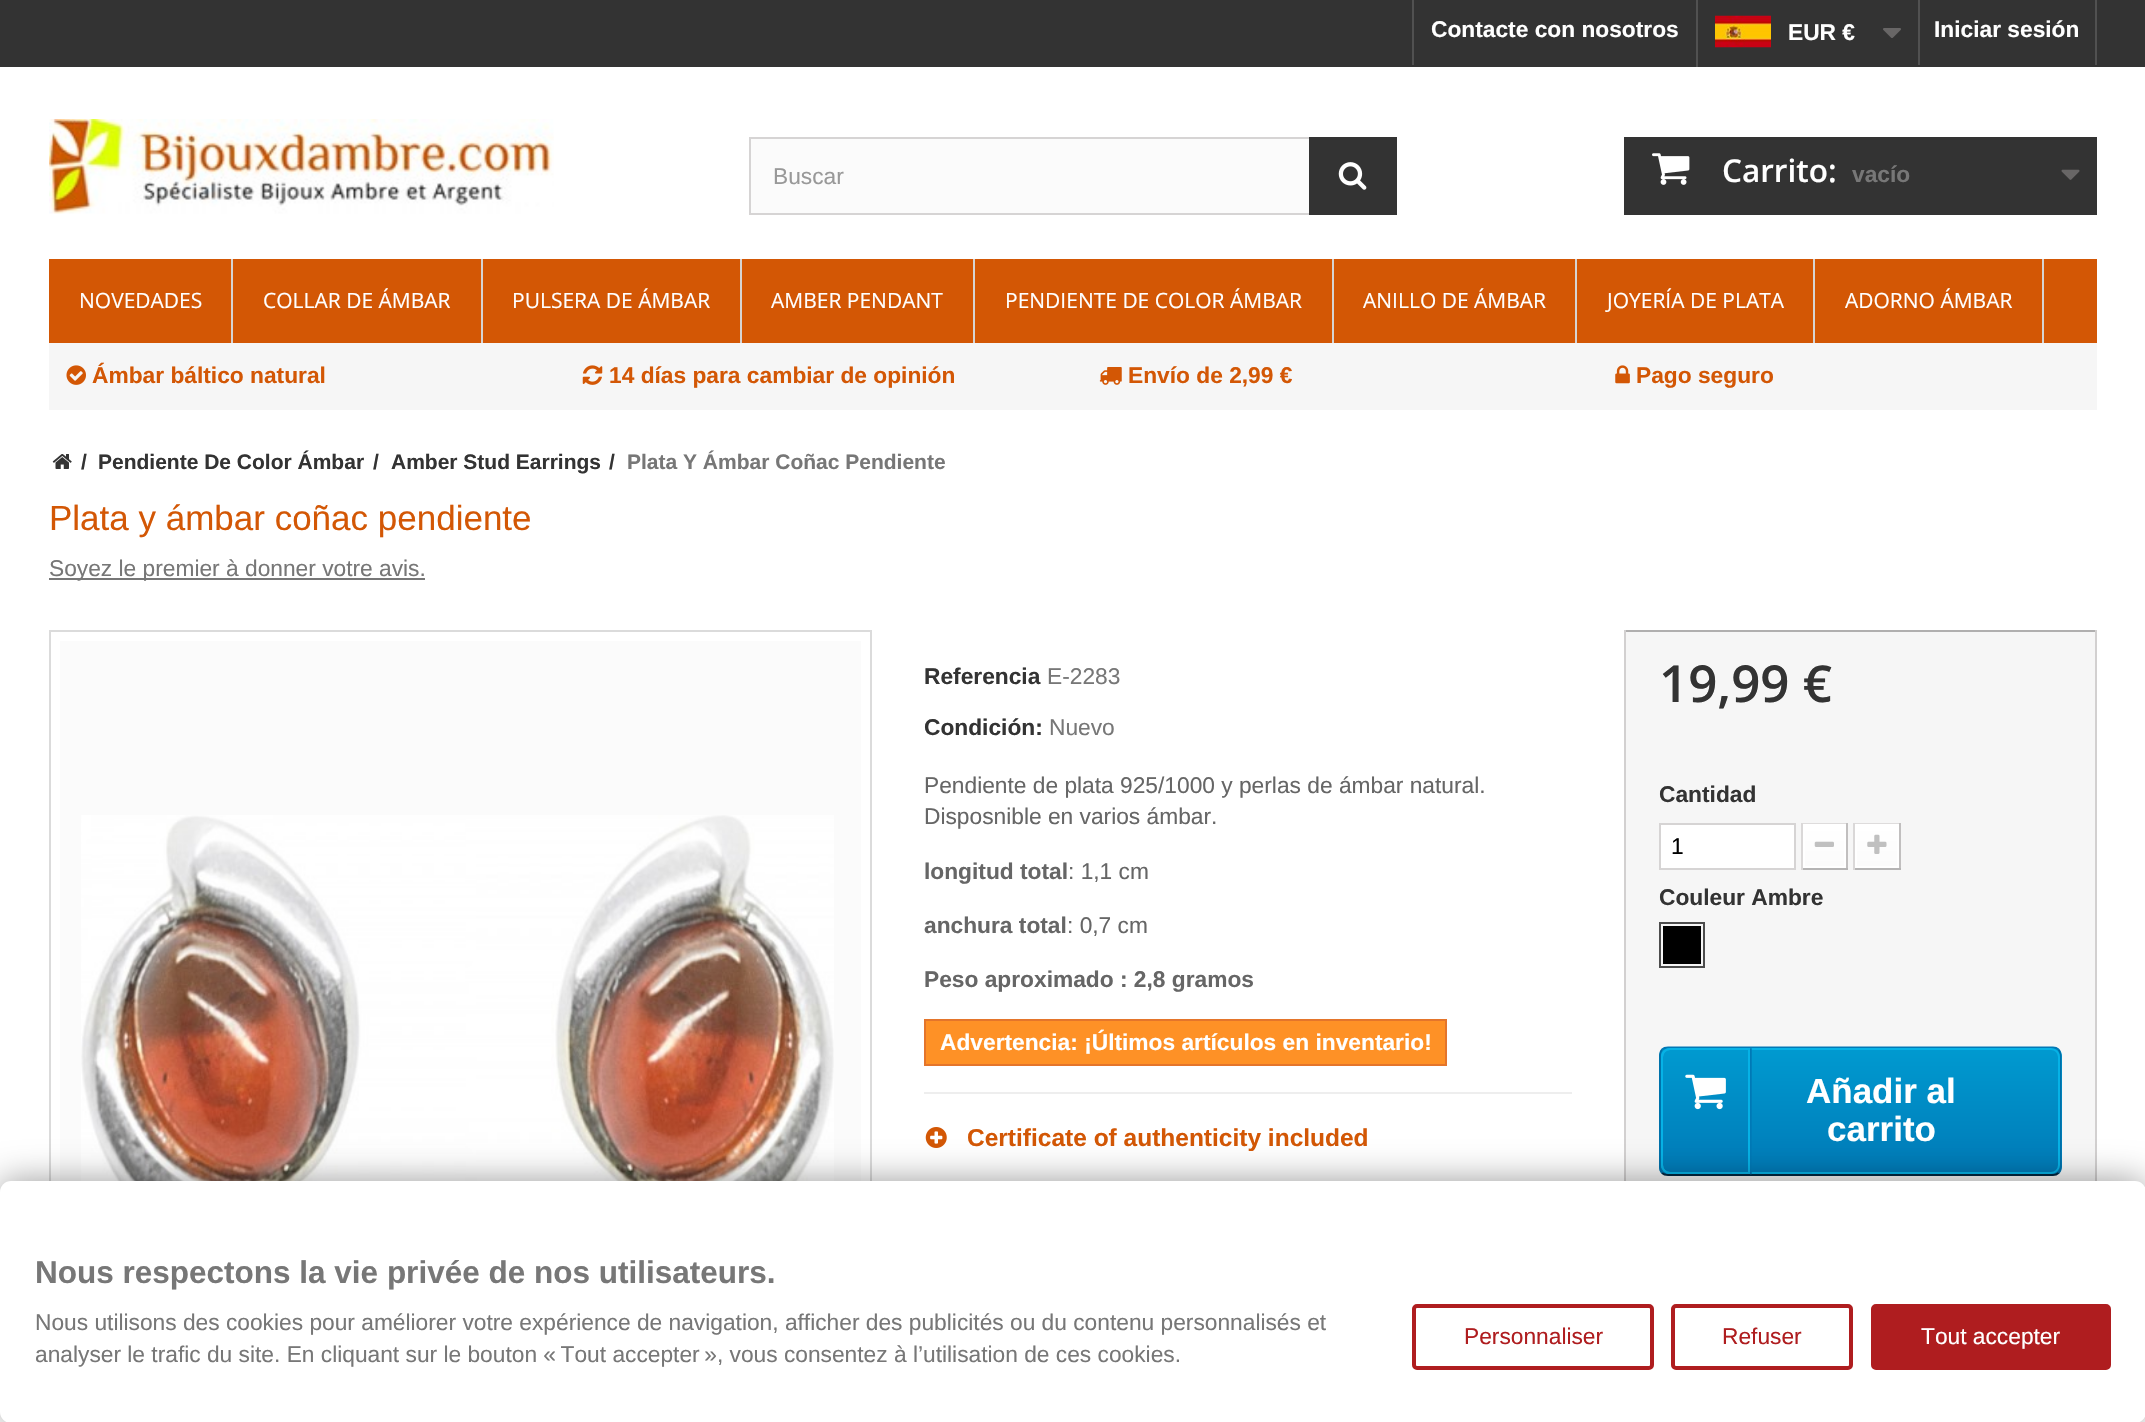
void draw(SkCanvas* canvas) {
    SkPaint paint;
    paint.setAntiAlias(true);
    auto face = [&](const char* family, int weight, float size, bool italic = false) {
        SkFontStyle style(weight, SkFontStyle::kNormal_Width,
            italic ? SkFontStyle::kItalic_Slant : SkFontStyle::kUpright_Slant);
        SkFont result(fontMgr->matchFamilyStyle(family, style), size);
        result.setSubpixel(true);
        return result;
    };
    auto write = [&](const char* s, float x, float y, const SkFont& font, SkColor color) {
        SkPaint ink(SkColor4f::FromColor(color));
        ink.setAntiAlias(true);
        canvas->drawString(s, x, y, font, ink);
    };
    auto block = [&](float x, float y, float w, float h, SkColor color) {
        SkPaint ink(SkColor4f::FromColor(color));
        ink.setAntiAlias(true);
        canvas->drawRect(SkRect::MakeXYWH(x, y, w, h), ink);
    };
    auto card = [&](float x, float y, float w, float h, float radius, SkColor color) {
        SkPaint ink(SkColor4f::FromColor(color));
        ink.setAntiAlias(true);
        canvas->drawRoundRect(SkRect::MakeXYWH(x, y, w, h), radius, radius, ink);
    };
    auto paste = [&](const char* path, float x, float y, float w, float h) {
        auto image = SkImages::DeferredFromEncodedData(SkData::MakeFromFileName(path));
        canvas->drawImageRect(image, SkRect::MakeXYWH(x, y, w, h), SkSamplingOptions());
    };
    canvas->clear(SK_ColorWHITE);
    block(0, 0, 2145, 67, SkColorSetRGB(51, 51, 51));
    block(1412, 0, 2, 65, SkColorSetRGB(81, 81, 81));
    auto kFont1 = face("Liberation Sans", 700, 22.75f);
    write("Contacte con nosotros", 1431, 37, kFont1, SK_ColorWHITE);
    block(1696, 0, 2, 67, SkColorSetRGB(81, 81, 81));
    paste("pic1.png", 1715, 15, 56, 33);
    write("EUR €", 1788, 40, kFont1, SK_ColorWHITE);
    paste("pic2.png", 1883, 28, 18, 10);
    block(2095, 0, 2, 65, SkColorSetRGB(81, 81, 81));
    block(1918, 0, 2, 65, SkColorSetRGB(81, 81, 81));
    write("Iniciar sesión", 1934, 37, kFont1, SK_ColorWHITE);
    paste("pic3.png", 49, 119, 505, 95);
    block(751, 139, 558, 74, SkColorSetRGB(251, 251, 251));
    paint.setStyle(SkPaint::kStroke_Style);
    paint.setStrokeWidth(2);
    paint.setColor(SkColorSetRGB(214, 212, 212));
    canvas->drawRect(SkRect::MakeXYWH(750, 138, 646, 76), paint);
    auto kFont2 = face("Liberation Sans", 400, 22.75f);
    write("Buscar", 773, 184, kFont2, SkColorSetRGB(153, 153, 153));
    block(1309, 137, 88, 78, SkColorSetRGB(51, 51, 51));
    paste("pic4.png", 1338, 162, 29, 28);
    block(1624, 137, 473, 78, SkColorSetRGB(51, 51, 51));
    paste("pic5.png", 1652, 153, 38, 32);
    auto kFont3 = face("Open Sans", 600, 31.5f);
    write("Carrito:", 1722, 182, kFont3, SK_ColorWHITE);
    write("vacío", 1852, 182, kFont1, SkColorSetRGB(119, 119, 119));
    paste("pic6.png", 2061, 169, 19, 11);
    block(49, 259, 2048, 84, SkColorSetRGB(211, 87, 5));
    block(231, 259, 2, 84, SkColorSetRGB(214, 212, 212));
    auto kFont4 = face("Open Sans", 400, 21);
    write("NOVEDADES", 79, 308, kFont4, SK_ColorWHITE);
    block(481, 259, 2, 84, SkColorSetRGB(214, 212, 212));
    write("COLLAR DE ÁMBAR", 263, 308, kFont4, SK_ColorWHITE);
    block(740, 259, 2, 84, SkColorSetRGB(214, 212, 212));
    write("PULSERA DE ÁMBAR", 512, 308, kFont4, SK_ColorWHITE);
    block(973, 259, 2, 84, SkColorSetRGB(214, 212, 212));
    write("AMBER PENDANT", 771, 308, kFont4, SK_ColorWHITE);
    block(1332, 259, 2, 84, SkColorSetRGB(214, 212, 212));
    write("PENDIENTE DE COLOR ÁMBAR", 1005, 308, kFont4, SK_ColorWHITE);
    block(1575, 259, 2, 84, SkColorSetRGB(214, 212, 212));
    write("ANILLO DE ÁMBAR", 1363, 308, kFont4, SK_ColorWHITE);
    block(1813, 259, 2, 84, SkColorSetRGB(214, 212, 212));
    write("JOYERÍA DE PLATA", 1607, 308, kFont4, SK_ColorWHITE);
    block(2042, 259, 2, 84, SkColorSetRGB(214, 212, 212));
    write("ADORNO ÁMBAR", 1845, 308, kFont4, SK_ColorWHITE);
    block(49, 343, 2048, 67, SkColorSetRGB(246, 246, 246));
    paste("pic7.png", 66, 365, 20, 20);
    write("Ámbar báltico natural", 92, 383, kFont1, SkColorSetRGB(211, 87, 5));
    paste("pic8.png", 582, 365, 21, 20);
    write("14 días para cambiar de opinión", 609, 383, kFont1, SkColorSetRGB(211, 87, 5));
    paste("pic9.png", 1099, 367, 23, 18);
    write("Envío de 2,99 €", 1128, 383, kFont1, SkColorSetRGB(211, 87, 5));
    paste("pic10.png", 1615, 365, 15, 19);
    write("Pago seguro", 1636, 383, kFont1, SkColorSetRGB(211, 87, 5));
    paste("pic11.png", 52, 454, 20, 15);
    auto kFont5 = face("Liberation Sans", 700, 21);
    write("/", 81, 469, kFont5, SkColorSetRGB(51, 51, 51));
    write("Pendiente De Color Ámbar", 98, 469, kFont5, SkColorSetRGB(51, 51, 51));
    write("/", 373, 469, kFont5, SkColorSetRGB(51, 51, 51));
    write("Amber Stud Earrings", 391, 469, kFont5, SkColorSetRGB(51, 51, 51));
    write("/", 609, 469, kFont5, SkColorSetRGB(51, 51, 51));
    write("Plata Y Ámbar Coñac Pendiente", 627, 469, kFont5, SkColorSetRGB(119, 119, 119));
    auto kFont6 = face("Liberation Sans", 400, 35);
    write("Plata y ámbar coñac pendiente", 49, 530, kFont6, SkColorSetRGB(211, 87, 5));
    block(49, 578, 376, 2, SkColorSetRGB(119, 119, 119));
    write("Soyez le premier à donner votre avis.", 49, 576, kFont2, SkColorSetRGB(119, 119, 119));
    paint.setColor(SkColorSetRGB(219, 219, 219));
    canvas->drawRect(SkRect::MakeXYWH(50, 631, 821, 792), paint);
    block(60, 641, 801, 540, SkColorSetRGB(251, 251, 251));
    paste("pic12.png", 81, 815, 753, 366);
    write("Referencia", 924, 684, kFont1, SkColorSetRGB(51, 51, 51));
    write("E-2283", 1047, 684, kFont2, SkColorSetRGB(119, 119, 119));
    write("Condición:", 924, 735, kFont1, SkColorSetRGB(51, 51, 51));
    write("Nuevo", 1049, 735, kFont2, SkColorSetRGB(119, 119, 119));
    write("Pendiente de plata 925/1000 y perlas de ámbar natural.", 924, 793, kFont2, SkColorSetRGB(102, 102, 102));
    write("Disposnible en varios ámbar.", 924, 824, kFont2, SkColorSetRGB(102, 102, 102));
    write("longitud total", 924, 879, kFont1, SkColorSetRGB(102, 102, 102));
    write(": 1,1 cm", 1068, 879, kFont2, SkColorSetRGB(102, 102, 102));
    write("anchura total", 924, 933, kFont1, SkColorSetRGB(102, 102, 102));
    write(": 0,7 cm", 1067, 933, kFont2, SkColorSetRGB(102, 102, 102));
    write("Peso aproximado : 2,8 gramos", 924, 987, kFont1, SkColorSetRGB(102, 102, 102));
    paint.setStyle(SkPaint::kFill_Style);
    paint.setColor(SkColorSetRGB(254, 145, 38));
    canvas->drawRect(SkRect::MakeXYWH(925, 1020, 521, 45), paint);
    paint.setStyle(SkPaint::kStroke_Style);
    paint.setColor(SkColorSetRGB(228, 117, 43));
    canvas->drawRect(SkRect::MakeXYWH(925, 1020, 521, 45), paint);
    write("Advertencia: ¡Últimos artículos en inventario!", 940, 1050, kFont1, SK_ColorWHITE);
    block(924, 1092, 648, 2, SkColorSetRGB(238, 238, 238));
    paste("pic13.png", 925, 1127, 22, 21);
    auto kFont7 = face("Liberation Sans", 700, 24.5f);
    write("Certificate of authenticity included", 967, 1146, kFont7, SkColorSetRGB(211, 87, 5));
    block(1626, 632, 469, 549, SkColorSetRGB(246, 246, 246));
    block(1624, 630, 473, 2, SkColorSetRGB(176, 175, 175));
    block(2095, 630, 2, 551, SkColorSetRGB(210, 208, 208));
    block(1624, 630, 2, 551, SkColorSetRGB(210, 208, 208));
    auto kFont8 = face("Open Sans", 600, 51);
    write("19,99 €", 1659, 702, kFont8, SkColorSetRGB(51, 51, 51));
    write("Cantidad", 1659, 802, kFont1, SkColorSetRGB(51, 51, 51));
    paint.setStyle(SkPaint::kFill_Style);
    paint.setColor(SK_ColorWHITE);
    canvas->drawRect(SkRect::MakeXYWH(1660, 824, 135, 45), paint);
    paint.setStyle(SkPaint::kStroke_Style);
    paint.setColor(SkColorSetRGB(214, 212, 212));
    canvas->drawRect(SkRect::MakeXYWH(1660, 824, 135, 45), paint);
    write("1", 1671, 854, kFont2, SK_ColorBLACK);
    block(1801, 823, 47, 1, SkColorSetRGB(222, 220, 220));
    block(1846, 823, 2, 47, SkColorSetRGB(193, 191, 191));
    block(1801, 868, 47, 2, SkColorSetRGB(181, 180, 180));
    block(1801, 823, 2, 47, SkColorSetRGB(218, 216, 216));
    paint.setStyle(SkPaint::kFill_Style);
    {
        const SkColor colors[] = {SK_ColorWHITE, SkColorSetRGB(251, 251, 251)};
        const float stops[] = {0, 1};
        const SkPoint ends[] = {{1824, 826}, {1824, 866}};
        paint.setShader(SkGradientShader::MakeLinear(ends, colors, stops, 2, SkTileMode::kClamp));
        paint.setAlpha(255);
    }
    canvas->drawRect(SkRect::MakeXYWH(1805, 826, 39, 40), paint);
    paint.setStyle(SkPaint::kStroke_Style);
    paint.setShader(nullptr);
    paint.setColor(SK_ColorWHITE);
    canvas->drawRect(SkRect::MakeXYWH(1804, 825, 41, 42), paint);
    paste("pic14.png", 1814, 841, 20, 6);
    block(1853, 823, 48, 1, SkColorSetRGB(222, 220, 220));
    block(1899, 823, 2, 47, SkColorSetRGB(193, 191, 191));
    block(1853, 868, 48, 2, SkColorSetRGB(181, 180, 180));
    block(1853, 823, 2, 47, SkColorSetRGB(218, 216, 216));
    paint.setStyle(SkPaint::kFill_Style);
    {
        const SkColor colors[] = {SK_ColorWHITE, SkColorSetRGB(251, 251, 251)};
        const float stops[] = {0, 1};
        const SkPoint ends[] = {{1877, 826}, {1877, 866}};
        paint.setShader(SkGradientShader::MakeLinear(ends, colors, stops, 2, SkTileMode::kClamp));
        paint.setAlpha(255);
    }
    canvas->drawRect(SkRect::MakeXYWH(1857, 826, 40, 40), paint);
    paint.setStyle(SkPaint::kStroke_Style);
    paint.setShader(nullptr);
    paint.setColor(SK_ColorWHITE);
    canvas->drawRect(SkRect::MakeXYWH(1856, 825, 42, 42), paint);
    paste("pic15.png", 1867, 834, 20, 20);
    write("Couleur Ambre", 1659, 905, kFont1, SkColorSetRGB(51, 51, 51));
    paint.setColor(SkColorSetRGB(77, 77, 77));
    canvas->drawRect(SkRect::MakeXYWH(1660, 923, 44, 44), paint);
    block(1663, 926, 38, 38, SK_ColorBLACK);
    canvas->save();
    canvas->clipPath(SkPathBuilder().moveTo(1668, 1047).lineTo(2053, 1047).cubicTo(2058, 1047, 2062, 1051, 2062, 1056).lineTo(2062, 1167).cubicTo(2062, 1172, 2058, 1176, 2053, 1176).lineTo(1668, 1176).cubicTo(1663, 1176, 1659, 1172, 1659, 1167).lineTo(1659, 1056).cubicTo(1659, 1051, 1663, 1047, 1668, 1047).close().detach(), true);
    paint.setStyle(SkPaint::kFill_Style);
    {
        const SkColor colors[] = {SkColorSetRGB(0, 154, 208), SkColorSetRGB(0, 122, 183)};
        const float stops[] = {0, 1};
        const SkPoint ends[] = {{1860, 1048}, {1860, 1174}};
        paint.setShader(SkGradientShader::MakeLinear(ends, colors, stops, 2, SkTileMode::kClamp));
        paint.setAlpha(255);
    }
    canvas->drawRect(SkRect::MakeXYWH(1659, 1048, 403, 126), paint);
    canvas->restore();
    paint.setStyle(SkPaint::kStroke_Style);
    paint.setStrokeWidth(1.8f);
    paint.setShader(nullptr);
    paint.setColor(SkColorSetRGB(0, 121, 182));
    canvas->drawPath(SkPathBuilder().moveTo(1662, 1049.5f).cubicTo(1663.5f, 1048, 1665.5f, 1047.5f, 1668, 1047.5f).lineTo(2053, 1047.5f).cubicTo(2055, 1047.5f, 2057, 1048, 2058.5f, 1049.5f).detach(), paint);
    paint.setColor(SkColorSetRGB(0, 111, 168));
    canvas->drawPath(SkPathBuilder().moveTo(2058.5f, 1049.5f).cubicTo(2060, 1051, 2060.5f, 1053, 2060.5f, 1055).lineTo(2060.5f, 1167).cubicTo(2060.5f, 1169.5f, 2060, 1171.5f, 2058.5f, 1173).detach(), paint);
    paint.setColor(SkColorSetRGB(1, 39, 64));
    canvas->drawPath(SkPathBuilder().moveTo(2058.5f, 1173).cubicTo(2057, 1174.5f, 2055, 1175, 2053, 1175).lineTo(1668, 1175).cubicTo(1665.5f, 1175, 1663.5f, 1174.5f, 1662, 1173).detach(), paint);
    paint.setColor(SkColorSetRGB(0, 111, 168));
    canvas->drawPath(SkPathBuilder().moveTo(1662, 1173).cubicTo(1660.5f, 1171.5f, 1660, 1169.5f, 1660, 1167).lineTo(1660, 1055).cubicTo(1660, 1053, 1660.5f, 1051, 1662, 1049.5f).detach(), paint);
    paint.setStrokeWidth(2);
    paint.setColor(SkColorSetRGB(6, 178, 230));
    canvas->drawRoundRect(SkRect::MakeXYWH(1662, 1049, 397, 124), 8, 8, paint);
    canvas->drawPath(SkPathBuilder().moveTo(1670, 1049).lineTo(1749, 1049).lineTo(1749, 1173).lineTo(1670, 1173).cubicTo(1665.5f, 1173, 1662, 1169.5f, 1662, 1165).lineTo(1662, 1057).cubicTo(1662, 1052.5f, 1665.5f, 1049, 1670, 1049).close().detach(), paint);
    paste("pic16.png", 1685, 1074, 41, 36);
    paste("pic17.png", 1750, 1048, 2, 127);
    auto kFont9 = face("Liberation Sans", 700, 35);
    write("Añadir al", 1806, 1103, kFont9, SK_ColorWHITE);
    write("carrito", 1827, 1141, kFont9, SK_ColorWHITE);
    paint.setStyle(SkPaint::kFill_Style);
    paint.setColor(SkColorSetARGB(102, 0, 0, 0));
    paint.setMaskFilter(SkMaskFilter::MakeBlur(kNormal_SkBlurStyle, 17.5f));
    canvas->drawRoundRect(SkRect::MakeXYWH(0, 1181, 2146, 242), 11, 11, paint);
    paint.setMaskFilter(nullptr);
    card(0, 1181, 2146, 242, 11, SK_ColorWHITE);
    auto kFont10 = face("Liberation Sans", 700, 31.5f);
    write("Nous respectons la vie privée de nos utilisateurs.", 35, 1283, kFont10, SkColorSetRGB(119, 119, 119));
    write("Nous utilisons des cookies pour améliorer votre expérience de navigation, afficher des publicités ou du contenu personnalisés et", 35, 1330, kFont2, SkColorSetRGB(119, 119, 119));
    write("analyser le trafic du site. En cliquant sur le bouton « Tout accepter », vous consentez à l’utilisation de ces cookies.", 35, 1362, kFont2, SkColorSetRGB(119, 119, 119));
    paint.setStyle(SkPaint::kStroke_Style);
    paint.setStrokeWidth(4);
    paint.setColor(SkColorSetRGB(175, 29, 31));
    canvas->drawRoundRect(SkRect::MakeXYWH(1414, 1306, 238, 62), 3, 3, paint);
    write("Personnaliser", 1464, 1344, kFont2, SkColorSetRGB(175, 29, 31));
    canvas->drawRoundRect(SkRect::MakeXYWH(1673, 1306, 178, 62), 3, 3, paint);
    write("Refuser", 1722, 1344, kFont2, SkColorSetRGB(175, 29, 31));
    paint.setStyle(SkPaint::kFill_Style);
    canvas->drawRoundRect(SkRect::MakeXYWH(1873, 1306, 236, 62), 3, 3, paint);
    paint.setStyle(SkPaint::kStroke_Style);
    canvas->drawRoundRect(SkRect::MakeXYWH(1873, 1306, 236, 62), 3, 3, paint);
    write("Tout accepter", 1921, 1344, kFont2, SK_ColorWHITE);
}
